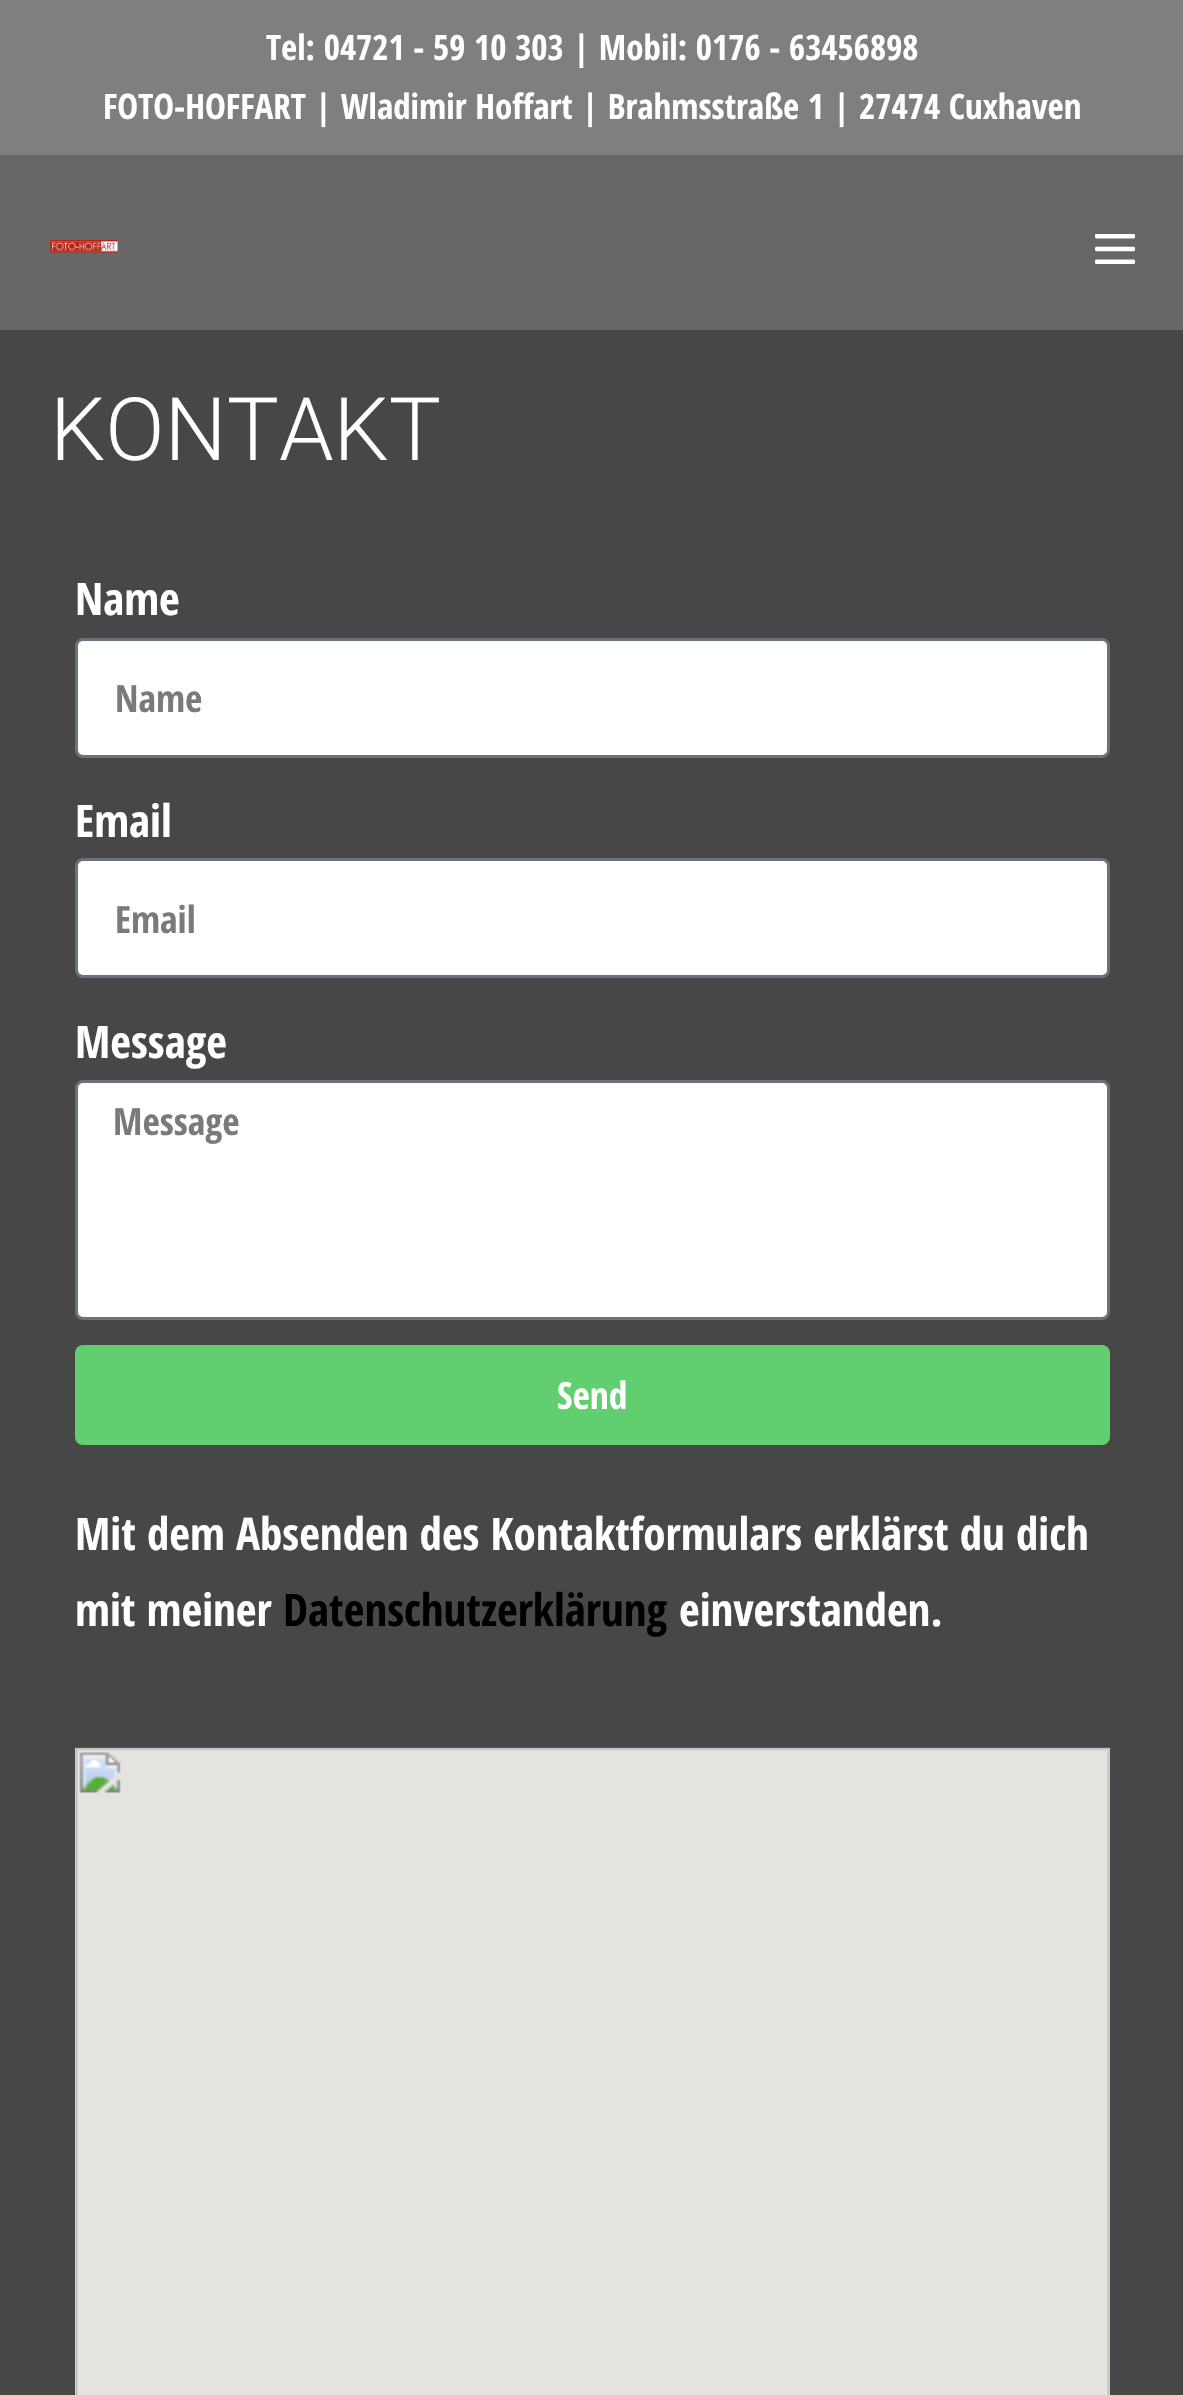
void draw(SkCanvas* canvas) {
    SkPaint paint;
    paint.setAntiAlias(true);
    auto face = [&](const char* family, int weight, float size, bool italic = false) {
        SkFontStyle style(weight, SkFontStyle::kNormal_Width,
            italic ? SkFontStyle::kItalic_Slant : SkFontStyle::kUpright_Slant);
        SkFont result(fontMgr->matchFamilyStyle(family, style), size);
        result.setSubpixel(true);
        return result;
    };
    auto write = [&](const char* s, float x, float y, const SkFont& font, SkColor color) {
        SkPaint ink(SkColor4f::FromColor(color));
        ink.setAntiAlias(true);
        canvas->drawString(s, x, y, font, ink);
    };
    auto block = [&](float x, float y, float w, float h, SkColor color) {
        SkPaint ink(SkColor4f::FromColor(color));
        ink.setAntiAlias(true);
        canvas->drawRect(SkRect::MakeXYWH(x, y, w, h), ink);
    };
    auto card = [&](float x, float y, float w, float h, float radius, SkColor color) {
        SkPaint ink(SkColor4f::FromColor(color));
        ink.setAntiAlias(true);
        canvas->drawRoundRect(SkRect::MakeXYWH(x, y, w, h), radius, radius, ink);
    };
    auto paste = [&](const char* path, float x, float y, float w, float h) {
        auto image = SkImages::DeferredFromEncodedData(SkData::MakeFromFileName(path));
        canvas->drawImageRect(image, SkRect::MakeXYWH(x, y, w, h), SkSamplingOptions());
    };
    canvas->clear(SkColorSetRGB(71, 71, 71));
    block(0, 0, 1183, 155, SkColorSetRGB(127, 127, 127));
    auto kFont1 = face("Open Sans Condensed", 700, 35);
    write("Tel: 04721 - 59 10 303 | Mobil: 0176 - 63456898", 266, 60, kFont1, SK_ColorWHITE);
    write("FOTO-HOFFART | Wladimir Hoffart | Brahmsstraße 1 | 27474 Cuxhaven", 103, 119, kFont1, SK_ColorWHITE);
    block(0, 155, 1183, 175, SkColorSetRGB(103, 103, 103));
    paste("pic1.png", 50, 240, 68, 13);
    paste("pic2.png", 1095, 234, 41, 30);
    auto kFont2 = face("Roboto", 300, 87.5f);
    write("KONTAKT", 50, 460, kFont2, SK_ColorWHITE);
    auto kFont3 = face("Open Sans Condensed", 700, 45);
    write("Name", 75, 615, kFont3, SK_ColorWHITE);
    paint.setColor(SK_ColorWHITE);
    canvas->drawRoundRect(SkRect::MakeXYWH(76.5f, 639.5f, 1032, 117), 6.5f, 6.5f, paint);
    paint.setStyle(SkPaint::kStroke_Style);
    paint.setStrokeWidth(3);
    paint.setColor(SkColorSetRGB(105, 114, 125));
    canvas->drawRoundRect(SkRect::MakeXYWH(76.5f, 639.5f, 1032, 117), 6.5f, 6.5f, paint);
    auto kFont4 = face("Open Sans Condensed", 700, 37.5f);
    write("Name", 115, 712, kFont4, SkColorSetRGB(121, 122, 124));
    write("Email", 75, 837, kFont3, SK_ColorWHITE);
    paint.setStyle(SkPaint::kFill_Style);
    paint.setColor(SK_ColorWHITE);
    canvas->drawRoundRect(SkRect::MakeXYWH(76.5f, 859.5f, 1032, 117), 6.5f, 6.5f, paint);
    paint.setStyle(SkPaint::kStroke_Style);
    paint.setColor(SkColorSetRGB(105, 114, 125));
    canvas->drawRoundRect(SkRect::MakeXYWH(76.5f, 859.5f, 1032, 117), 6.5f, 6.5f, paint);
    write("Email", 115, 933, kFont4, SkColorSetRGB(121, 122, 124));
    write("Message", 75, 1058, kFont3, SK_ColorWHITE);
    paint.setStyle(SkPaint::kFill_Style);
    paint.setColor(SK_ColorWHITE);
    canvas->drawRoundRect(SkRect::MakeXYWH(76.5f, 1081.5f, 1032, 237), 6.5f, 6.5f, paint);
    paint.setStyle(SkPaint::kStroke_Style);
    paint.setColor(SkColorSetRGB(105, 114, 125));
    canvas->drawRoundRect(SkRect::MakeXYWH(76.5f, 1081.5f, 1032, 237), 6.5f, 6.5f, paint);
    write("Message", 113, 1135, kFont4, SkColorSetRGB(121, 122, 124));
    card(75, 1345, 1035, 100, 8, SkColorSetRGB(97, 206, 112));
    write("Send", 557, 1409, kFont4, SK_ColorWHITE);
    write("Mit dem Absenden des Kontaktformulars erklärst du dich", 75, 1550, kFont3, SK_ColorWHITE);
    write("mit meiner", 75, 1626, kFont3, SK_ColorWHITE);
    write("Datenschutzerklärung", 283, 1626, kFont3, SK_ColorBLACK);
    write("einverstanden.", 679, 1626, kFont3, SK_ColorWHITE);
    paste("pic3.png", 75, 1747, 1035, 648);
}
